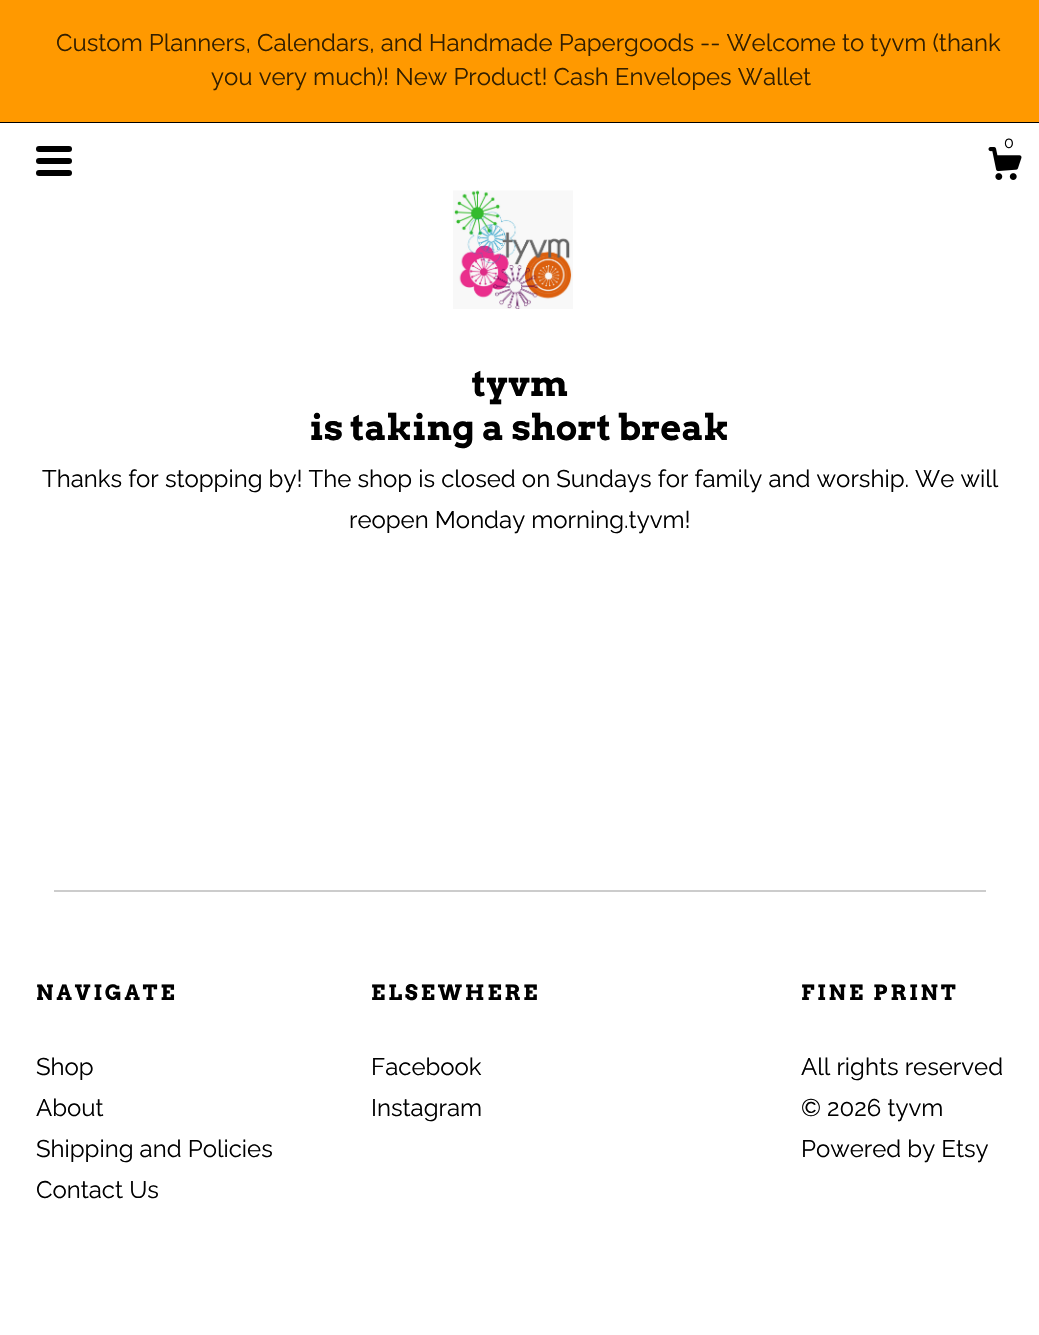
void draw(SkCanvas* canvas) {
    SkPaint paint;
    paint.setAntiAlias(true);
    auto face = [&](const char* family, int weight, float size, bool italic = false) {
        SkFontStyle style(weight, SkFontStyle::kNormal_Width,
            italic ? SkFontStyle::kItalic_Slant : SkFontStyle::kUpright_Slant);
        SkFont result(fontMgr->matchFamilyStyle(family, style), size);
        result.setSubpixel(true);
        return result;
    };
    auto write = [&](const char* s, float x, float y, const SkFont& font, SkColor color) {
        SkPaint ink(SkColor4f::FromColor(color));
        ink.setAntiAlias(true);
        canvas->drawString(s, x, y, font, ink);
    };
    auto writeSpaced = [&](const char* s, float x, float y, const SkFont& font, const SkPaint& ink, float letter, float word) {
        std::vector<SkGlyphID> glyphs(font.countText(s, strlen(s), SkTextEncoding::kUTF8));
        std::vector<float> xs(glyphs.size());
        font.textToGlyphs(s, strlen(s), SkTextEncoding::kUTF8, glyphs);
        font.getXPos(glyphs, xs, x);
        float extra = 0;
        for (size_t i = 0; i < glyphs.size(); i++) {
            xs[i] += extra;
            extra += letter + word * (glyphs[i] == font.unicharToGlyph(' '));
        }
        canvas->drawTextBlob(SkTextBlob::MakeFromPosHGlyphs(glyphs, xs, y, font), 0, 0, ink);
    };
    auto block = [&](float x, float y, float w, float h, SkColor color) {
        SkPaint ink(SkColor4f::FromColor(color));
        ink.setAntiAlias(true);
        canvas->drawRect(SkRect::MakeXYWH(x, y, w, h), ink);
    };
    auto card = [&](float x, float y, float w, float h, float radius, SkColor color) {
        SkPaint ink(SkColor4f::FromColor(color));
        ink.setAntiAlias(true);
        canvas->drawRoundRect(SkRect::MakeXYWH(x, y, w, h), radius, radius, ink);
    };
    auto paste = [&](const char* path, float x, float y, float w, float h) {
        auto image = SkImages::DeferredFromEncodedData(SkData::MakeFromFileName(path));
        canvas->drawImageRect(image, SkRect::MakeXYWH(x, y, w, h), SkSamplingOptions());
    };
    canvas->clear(SK_ColorWHITE);
    block(0, 0, 1039, 122, SkColorSetRGB(255, 153, 0));
    block(0, 122, 1039, 1, SK_ColorBLACK);
    auto kFont1 = face("Raleway", 400, 24);
    write("Custom Planners, Calendars, and Handmade Papergoods -- Welcome to tyvm (thank", 56, 51, kFont1, SkColorSetRGB(51, 31, 0));
    write("you very much)! New Product! Cash Envelopes Wallet", 211, 85, kFont1, SkColorSetRGB(51, 31, 0));
    paste("pic1.png", 988, 147, 34, 33);
    auto kFont2 = face("Raleway", 400, 16);
    write("0", 1004, 148, kFont2, SK_ColorBLACK);
    card(36, 146, 36, 6, 3, SK_ColorBLACK);
    card(36, 158, 36, 6, 3, SK_ColorBLACK);
    card(36, 170, 36, 6, 3, SK_ColorBLACK);
    paste("pic2.png", 453, 190, 120, 119);
    auto kFont3 = face("Arvo", 700, 36);
    write("tyvm", 472, 396, kFont3, SK_ColorBLACK);
    write("is taking a short break", 310, 440, kFont3, SK_ColorBLACK);
    write("Thanks for stopping by! The shop is closed on Sundays for family and worship. We will", 42, 487, kFont1, SK_ColorBLACK);
    write("reopen Monday morning.tyvm!", 349, 528, kFont1, SK_ColorBLACK);
    block(54, 890, 932, 2, SkColorSetRGB(204, 204, 204));
    auto kFont4 = face("Arvo", 700, 21);
    paint.setColor(SK_ColorBLACK);
    writeSpaced("NAVIGATE", 36, 1000, kFont4, paint, 3, 0);
    write("Shop", 36, 1075, kFont1, SK_ColorBLACK);
    write("About", 36, 1116, kFont1, SK_ColorBLACK);
    write("Shipping and Policies", 36, 1157, kFont1, SK_ColorBLACK);
    write("Contact Us", 36, 1198, kFont1, SK_ColorBLACK);
    writeSpaced("ELSEWHERE", 371, 1000, kFont4, paint, 3, 0);
    write("Facebook", 371, 1075, kFont1, SK_ColorBLACK);
    write("Instagram", 371, 1116, kFont1, SK_ColorBLACK);
    writeSpaced("FINE PRINT", 801, 1000, kFont4, paint, 3, 0);
    write("All rights reserved", 801, 1075, kFont1, SK_ColorBLACK);
    write("© 2026 tyvm", 801, 1116, kFont1, SK_ColorBLACK);
    write("Powered by Etsy", 801, 1157, kFont1, SK_ColorBLACK);
}
